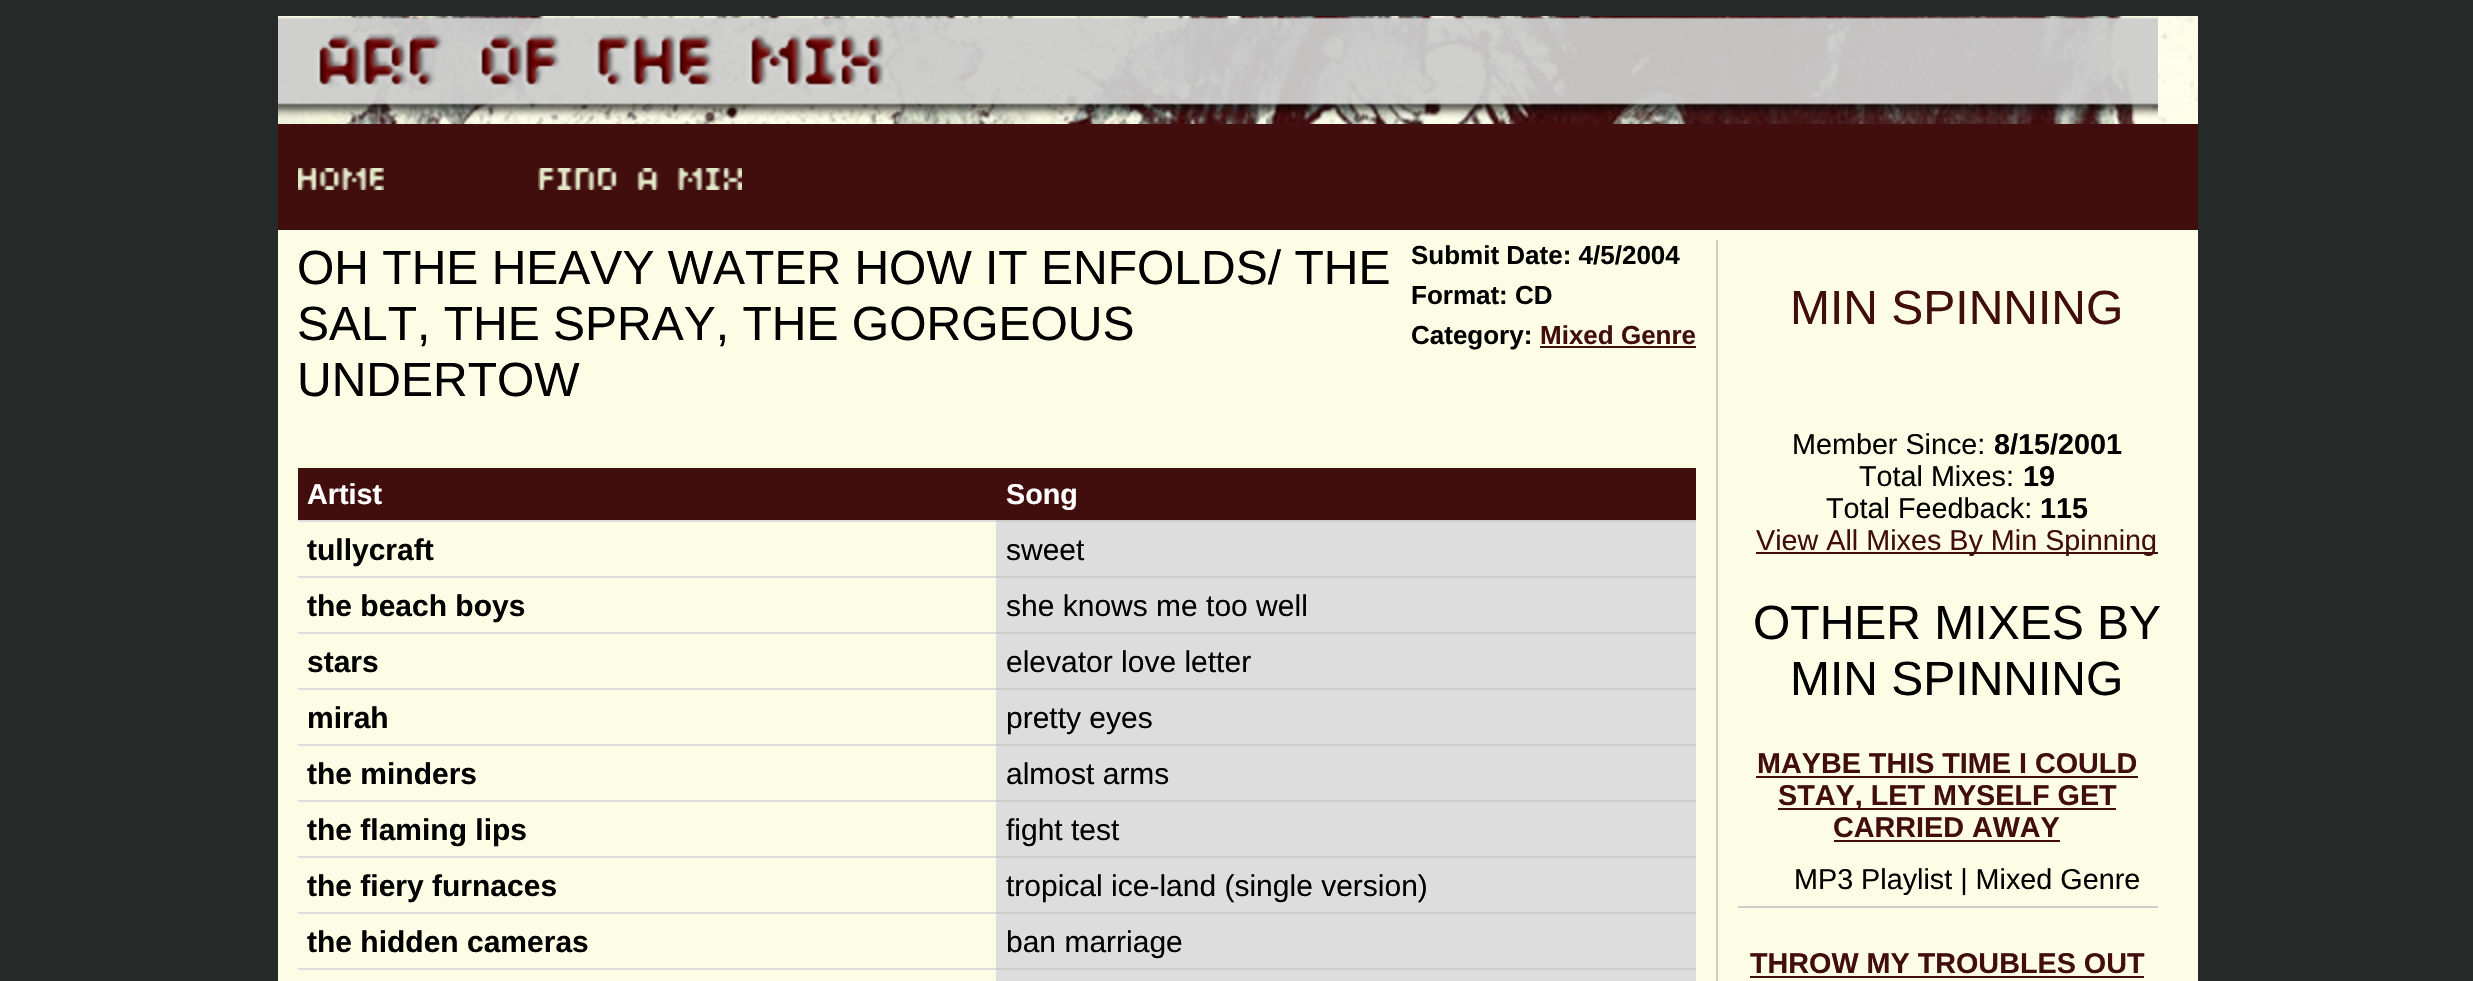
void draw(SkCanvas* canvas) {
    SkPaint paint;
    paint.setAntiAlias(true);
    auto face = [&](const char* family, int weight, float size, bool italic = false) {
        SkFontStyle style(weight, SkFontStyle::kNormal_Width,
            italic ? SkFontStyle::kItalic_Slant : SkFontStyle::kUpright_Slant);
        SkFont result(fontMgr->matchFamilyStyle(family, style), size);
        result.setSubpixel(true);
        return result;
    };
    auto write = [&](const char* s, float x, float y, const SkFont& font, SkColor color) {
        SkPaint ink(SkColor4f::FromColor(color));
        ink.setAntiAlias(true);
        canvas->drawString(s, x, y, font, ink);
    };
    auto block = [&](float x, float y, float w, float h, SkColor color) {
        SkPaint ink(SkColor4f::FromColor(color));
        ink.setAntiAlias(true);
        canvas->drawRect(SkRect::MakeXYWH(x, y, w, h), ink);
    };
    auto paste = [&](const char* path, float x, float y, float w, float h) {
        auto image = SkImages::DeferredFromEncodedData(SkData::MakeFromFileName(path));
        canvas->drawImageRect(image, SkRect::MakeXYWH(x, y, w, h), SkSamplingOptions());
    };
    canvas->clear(SkColorSetRGB(37, 42, 41));
    block(278, 230, 1920, 751, SkColorSetRGB(253, 253, 229));
    paste("pic1.png", 278, 16, 1920, 108);
    paste("pic2.png", 278, 16, 1880, 102);
    block(278, 124, 1920, 106, SkColorSetRGB(65, 13, 13));
    paste("pic3.png", 298, 168, 86, 22);
    paste("pic4.png", 538, 168, 204, 22);
    block(1716, 240, 2, 741, SkColorSetRGB(204, 204, 204));
    auto kFont1 = face("Liberation Sans", 400, 48);
    write("OH THE HEAVY WATER HOW IT ENFOLDS/ THE", 297, 284, kFont1, SK_ColorBLACK);
    write("SALT, THE SPRAY, THE GORGEOUS", 297, 340, kFont1, SK_ColorBLACK);
    write("UNDERTOW", 297, 396, kFont1, SK_ColorBLACK);
    auto kFont2 = face("Liberation Sans", 700, 26);
    write("Submit Date: 4/5/2004", 1411, 264, kFont2, SK_ColorBLACK);
    write("Format: CD", 1411, 304, kFont2, SK_ColorBLACK);
    write("Category:", 1411, 344, kFont2, SK_ColorBLACK);
    write("Mixed Genre", 1540, 344, kFont2, SkColorSetRGB(65, 13, 13));
    block(1540, 346, 156, 2, SkColorSetRGB(65, 13, 13));
    block(298, 468, 1398, 52, SkColorSetRGB(65, 13, 13));
    auto kFont3 = face("Liberation Sans", 700, 28.75f);
    write("Artist", 307, 504, kFont3, SK_ColorWHITE);
    write("Song", 1006, 504, kFont3, SK_ColorWHITE);
    block(298, 520, 698, 2, SkColorSetRGB(221, 221, 221));
    auto kFont4 = face("Liberation Sans", 700, 30);
    write("tullycraft", 307, 560, kFont4, SK_ColorBLACK);
    block(996, 522, 700, 54, SkColorSetRGB(221, 221, 221));
    block(996, 520, 700, 2, SkColorSetRGB(204, 204, 204));
    auto kFont5 = face("Liberation Sans", 400, 30);
    write("sweet", 1006, 560, kFont5, SK_ColorBLACK);
    block(298, 576, 698, 2, SkColorSetRGB(221, 221, 221));
    write("the beach boys", 307, 616, kFont4, SK_ColorBLACK);
    block(996, 578, 700, 54, SkColorSetRGB(221, 221, 221));
    block(996, 576, 700, 2, SkColorSetRGB(204, 204, 204));
    write("she knows me too well", 1006, 616, kFont5, SK_ColorBLACK);
    block(298, 632, 698, 2, SkColorSetRGB(221, 221, 221));
    write("stars", 307, 672, kFont4, SK_ColorBLACK);
    block(996, 634, 700, 54, SkColorSetRGB(221, 221, 221));
    block(996, 632, 700, 2, SkColorSetRGB(204, 204, 204));
    write("elevator love letter", 1006, 672, kFont5, SK_ColorBLACK);
    block(298, 688, 698, 2, SkColorSetRGB(221, 221, 221));
    write("mirah", 307, 728, kFont4, SK_ColorBLACK);
    block(996, 690, 700, 54, SkColorSetRGB(221, 221, 221));
    block(996, 688, 700, 2, SkColorSetRGB(204, 204, 204));
    write("pretty eyes", 1006, 728, kFont5, SK_ColorBLACK);
    block(298, 744, 698, 2, SkColorSetRGB(221, 221, 221));
    write("the minders", 307, 784, kFont4, SK_ColorBLACK);
    block(996, 746, 700, 54, SkColorSetRGB(221, 221, 221));
    block(996, 744, 700, 2, SkColorSetRGB(204, 204, 204));
    write("almost arms", 1006, 784, kFont5, SK_ColorBLACK);
    block(298, 800, 698, 2, SkColorSetRGB(221, 221, 221));
    write("the flaming lips", 307, 840, kFont4, SK_ColorBLACK);
    block(996, 802, 700, 54, SkColorSetRGB(221, 221, 221));
    block(996, 800, 700, 2, SkColorSetRGB(204, 204, 204));
    write("fight test", 1006, 840, kFont5, SK_ColorBLACK);
    block(298, 856, 698, 2, SkColorSetRGB(221, 221, 221));
    write("the fiery furnaces", 307, 896, kFont4, SK_ColorBLACK);
    block(996, 858, 700, 54, SkColorSetRGB(221, 221, 221));
    block(996, 856, 700, 2, SkColorSetRGB(204, 204, 204));
    write("tropical ice-land (single version)", 1006, 896, kFont5, SK_ColorBLACK);
    block(298, 912, 698, 2, SkColorSetRGB(221, 221, 221));
    write("the hidden cameras", 307, 952, kFont4, SK_ColorBLACK);
    block(996, 914, 700, 54, SkColorSetRGB(221, 221, 221));
    block(996, 912, 700, 2, SkColorSetRGB(204, 204, 204));
    write("ban marriage", 1006, 952, kFont5, SK_ColorBLACK);
    block(298, 968, 698, 2, SkColorSetRGB(221, 221, 221));
    block(996, 970, 700, 11, SkColorSetRGB(221, 221, 221));
    block(996, 968, 700, 2, SkColorSetRGB(204, 204, 204));
    write("MIN SPINNING", 1790, 324, kFont1, SkColorSetRGB(65, 13, 13));
    auto kFont6 = face("Liberation Sans", 400, 28.75f);
    write("Member Since:", 1792, 454, kFont6, SK_ColorBLACK);
    write("8/15/2001", 1994, 454, kFont3, SK_ColorBLACK);
    write("Total Mixes:", 1859, 486, kFont6, SK_ColorBLACK);
    write("19", 2023, 486, kFont3, SK_ColorBLACK);
    write("Total Feedback:", 1826, 518, kFont6, SK_ColorBLACK);
    write("115", 2040, 518, kFont3, SK_ColorBLACK);
    block(1756, 552, 402, 2, SkColorSetRGB(65, 13, 13));
    write("View All Mixes By Min Spinning", 1756, 550, kFont6, SkColorSetRGB(65, 13, 13));
    write("OTHER MIXES BY", 1753, 639, kFont1, SK_ColorBLACK);
    write("MIN SPINNING", 1790, 695, kFont1, SK_ColorBLACK);
    block(1738, 906, 420, 2, SkColorSetRGB(204, 204, 204));
    write("MAYBE THIS TIME I COULD", 1757, 773, kFont3, SkColorSetRGB(65, 13, 13));
    block(1756, 776, 382, 2, SkColorSetRGB(65, 13, 13));
    block(1778, 808, 338, 2, SkColorSetRGB(65, 13, 13));
    write("STAY, LET MYSELF GET", 1778, 805, kFont3, SkColorSetRGB(65, 13, 13));
    write("CARRIED AWAY", 1833, 837, kFont3, SkColorSetRGB(65, 13, 13));
    block(1834, 840, 226, 2, SkColorSetRGB(65, 13, 13));
    write("MP3 Playlist | Mixed Genre", 1794, 889, kFont6, SK_ColorBLACK);
    write("THROW MY TROUBLES OUT", 1750, 973, kFont3, SkColorSetRGB(65, 13, 13));
    block(1750, 976, 394, 2, SkColorSetRGB(65, 13, 13));
}
